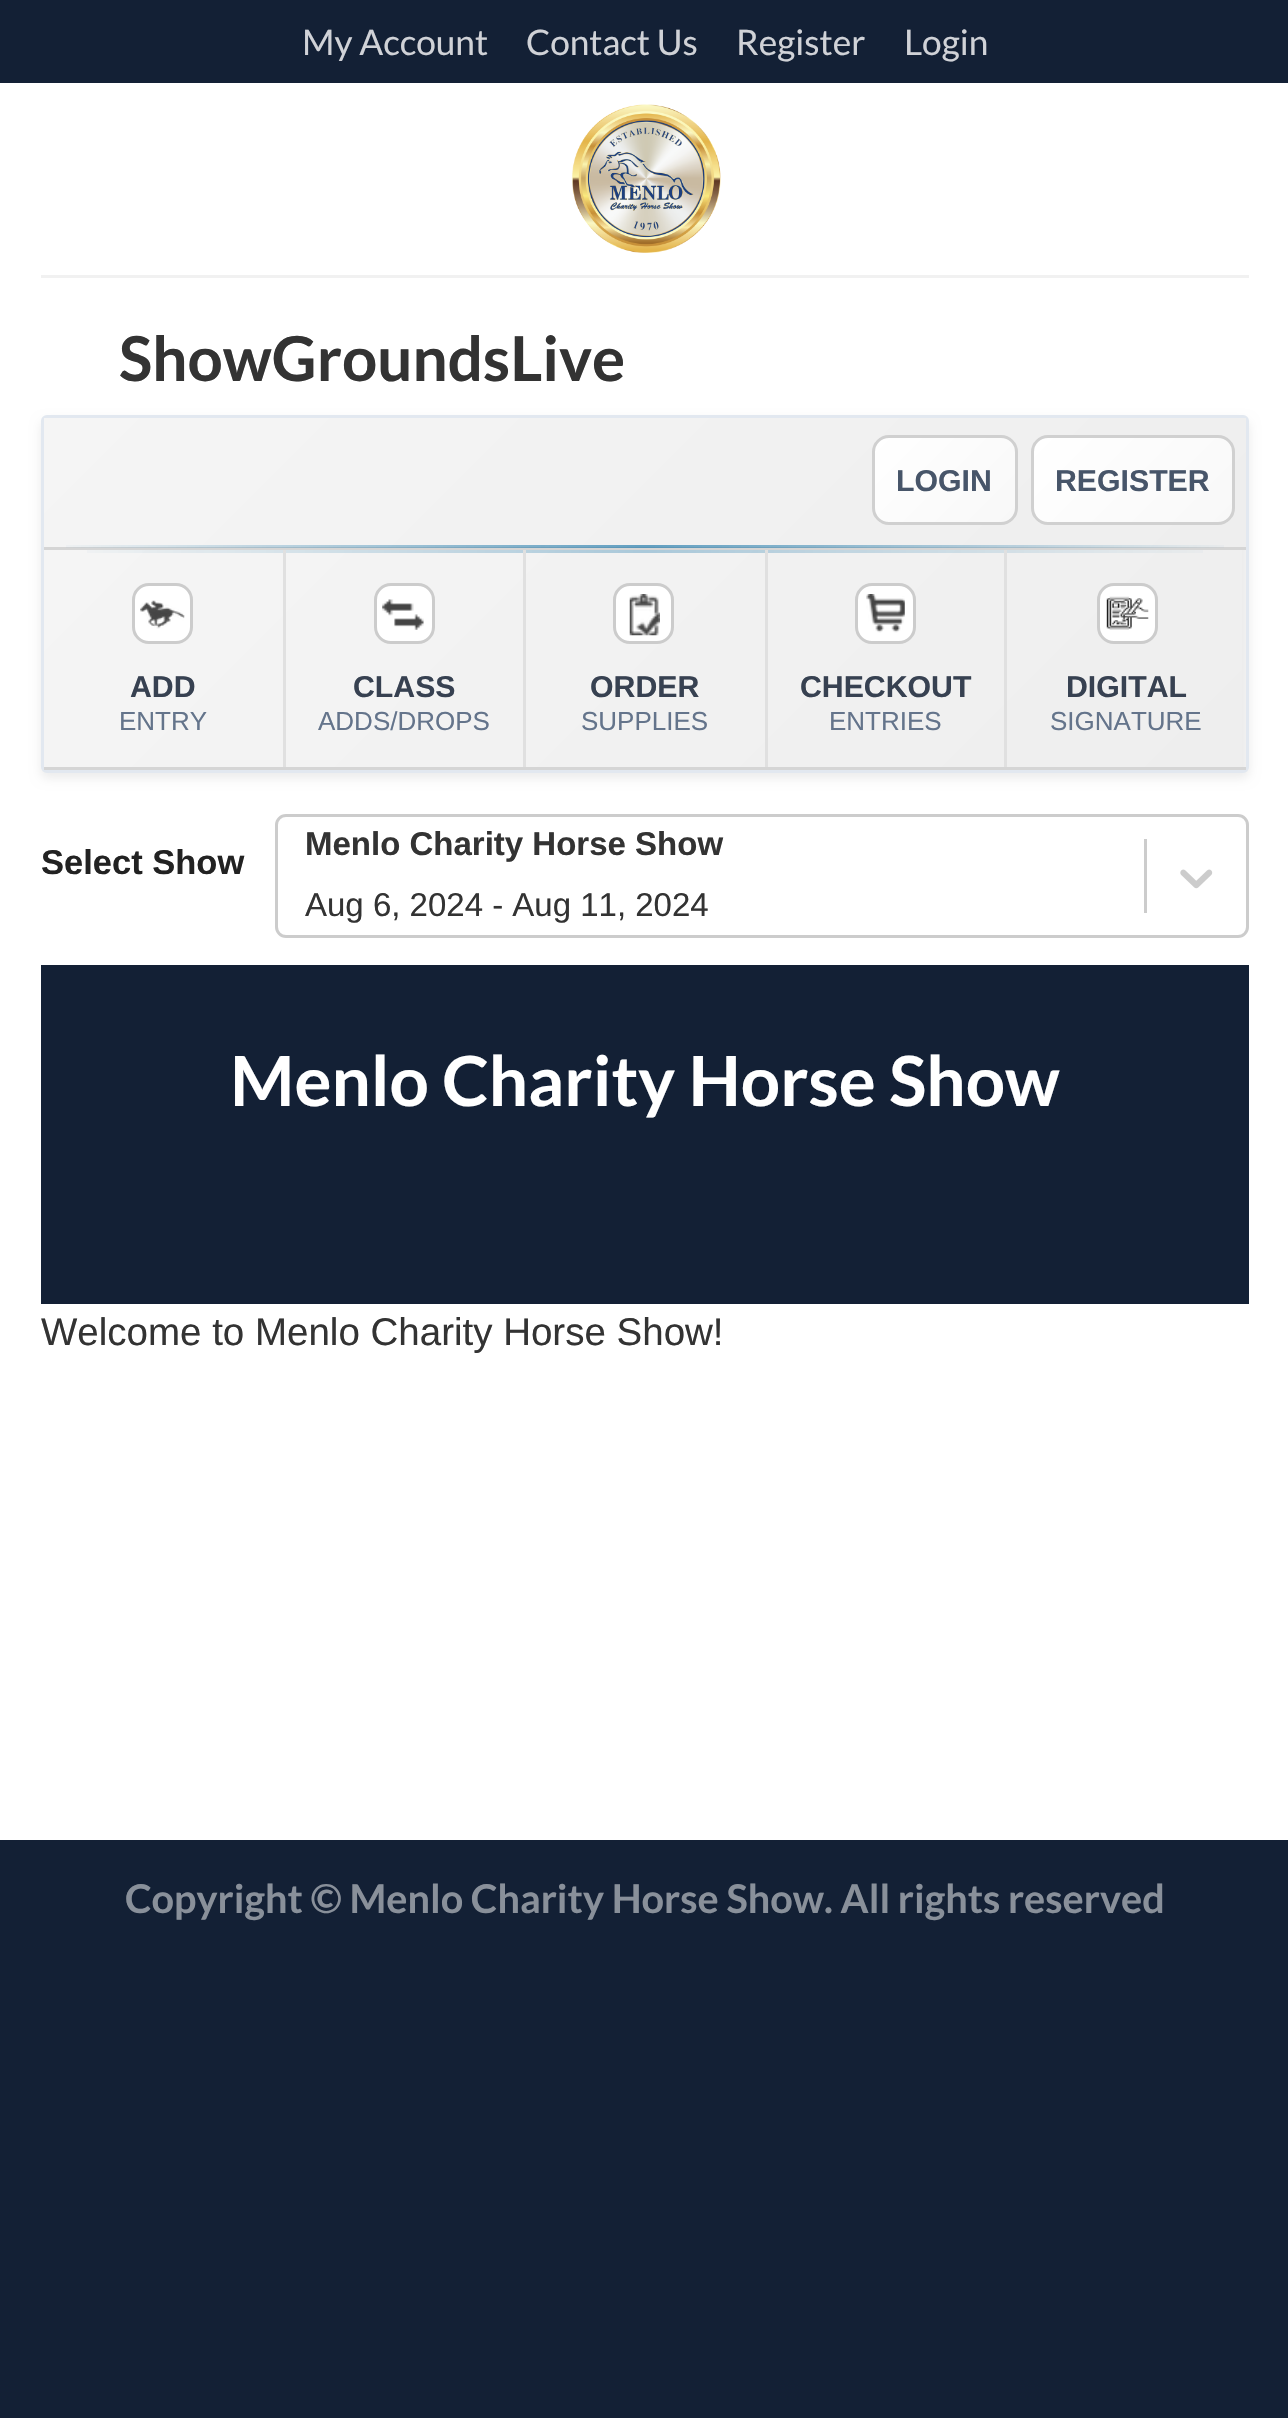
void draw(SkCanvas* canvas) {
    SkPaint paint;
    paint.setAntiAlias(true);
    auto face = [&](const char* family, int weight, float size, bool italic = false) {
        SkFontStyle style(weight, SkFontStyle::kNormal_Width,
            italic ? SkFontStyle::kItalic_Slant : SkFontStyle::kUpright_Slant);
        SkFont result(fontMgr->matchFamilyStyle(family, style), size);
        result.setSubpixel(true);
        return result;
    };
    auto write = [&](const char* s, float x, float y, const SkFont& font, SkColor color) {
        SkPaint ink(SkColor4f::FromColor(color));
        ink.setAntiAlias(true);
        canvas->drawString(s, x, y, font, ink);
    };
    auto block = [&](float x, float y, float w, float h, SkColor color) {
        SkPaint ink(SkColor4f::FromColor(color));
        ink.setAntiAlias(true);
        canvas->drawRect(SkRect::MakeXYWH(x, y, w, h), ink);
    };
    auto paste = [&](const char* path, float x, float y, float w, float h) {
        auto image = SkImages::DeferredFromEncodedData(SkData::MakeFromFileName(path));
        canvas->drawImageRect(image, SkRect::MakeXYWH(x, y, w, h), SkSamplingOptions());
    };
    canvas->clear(SkColorSetRGB(19, 32, 53));
    block(0, 83, 1288, 1757, SK_ColorWHITE);
    auto kFont1 = face("Lato", 400, 35.25f);
    write("My Account", 302, 55, kFont1, SkColorSetRGB(208, 210, 215));
    write("Contact Us", 526, 55, kFont1, SkColorSetRGB(208, 210, 215));
    write("Register", 736, 55, kFont1, SkColorSetRGB(208, 210, 215));
    write("Login", 904, 55, kFont1, SkColorSetRGB(208, 210, 215));
    paste("pic1.png", 572, 104, 149, 149);
    block(41, 275, 1208, 3, SkColorSetRGB(241, 241, 241));
    auto kFont2 = face("Lato", 700, 62);
    write("ShowGroundsLive", 119, 381, kFont2, SkColorSetRGB(51, 51, 51));
    paint.setColor(SkColorSetARGB(20, 0, 0, 0));
    paint.setMaskFilter(SkMaskFilter::MakeBlur(kNormal_SkBlurStyle, 5.5f));
    canvas->drawRoundRect(SkRect::MakeXYWH(41, 421, 1208, 357), 6, 6, paint);
    paint.setMaskFilter(nullptr);
    paint.setStyle(SkPaint::kStroke_Style);
    paint.setStrokeWidth(3);
    paint.setColor(SkColorSetRGB(226, 232, 240));
    canvas->drawRoundRect(SkRect::MakeXYWH(42.5f, 416.5f, 1205, 355), 4.5f, 4.5f, paint);
    paint.setStyle(SkPaint::kFill_Style);
    {
        const SkColor colors[] = {SkColorSetRGB(245, 245, 245), SkColorSetRGB(238, 238, 238)};
        const float stops[] = {0, 1};
        const SkPoint ends[] = {{312, 150}, {978, 815}};
        paint.setShader(SkGradientShader::MakeLinear(ends, colors, stops, 2, SkTileMode::kClamp));
        paint.setAlpha(255);
    }
    canvas->drawRect(SkRect::MakeXYWH(44, 418, 1202, 129), paint);
    block(44, 547, 1202, 3, SkColorSetRGB(213, 213, 213));
    canvas->save();
    canvas->clipPath(SkPathBuilder().moveTo(889, 435).lineTo(1001, 435).cubicTo(1010.5f, 435, 1018, 442.5f, 1018, 452).lineTo(1018, 508).cubicTo(1018, 517.5f, 1010.5f, 525, 1001, 525).lineTo(889, 525).cubicTo(879.5f, 525, 872, 517.5f, 872, 508).lineTo(872, 452).cubicTo(872, 442.5f, 879.5f, 435, 889, 435).close().detach(), true);
    {
        const SkColor colors[] = {SK_ColorWHITE, SkColorSetRGB(248, 248, 248)};
        const float stops[] = {0, 1};
        const SkPoint ends[] = {{888, 424}, {1001, 536}};
        paint.setShader(SkGradientShader::MakeLinear(ends, colors, stops, 2, SkTileMode::kClamp));
        paint.setAlpha(255);
    }
    canvas->drawRect(SkRect::MakeXYWH(875, 437, 140, 86), paint);
    canvas->restore();
    paint.setStyle(SkPaint::kStroke_Style);
    paint.setShader(nullptr);
    paint.setColor(SkColorSetRGB(208, 208, 208));
    canvas->drawRoundRect(SkRect::MakeXYWH(873.5f, 436.5f, 143, 87), 15.5f, 15.5f, paint);
    auto kFont3 = face("Liberation Sans", 700, 30.25f);
    write("LOGIN", 896, 491, kFont3, SkColorSetRGB(71, 85, 105));
    canvas->save();
    canvas->clipPath(SkPathBuilder().moveTo(1048, 435).lineTo(1218, 435).cubicTo(1227.5f, 435, 1235, 442.5f, 1235, 452).lineTo(1235, 508).cubicTo(1235, 517.5f, 1227.5f, 525, 1218, 525).lineTo(1048, 525).cubicTo(1038.5f, 525, 1031, 517.5f, 1031, 508).lineTo(1031, 452).cubicTo(1031, 442.5f, 1038.5f, 435, 1048, 435).close().detach(), true);
    paint.setStyle(SkPaint::kFill_Style);
    {
        const SkColor colors[] = {SK_ColorWHITE, SkColorSetRGB(248, 248, 248)};
        const float stops[] = {0, 1};
        const SkPoint ends[] = {{1062, 409}, {1204, 551}};
        paint.setShader(SkGradientShader::MakeLinear(ends, colors, stops, 2, SkTileMode::kClamp));
        paint.setAlpha(255);
    }
    canvas->drawRect(SkRect::MakeXYWH(1034, 437, 198, 86), paint);
    canvas->restore();
    paint.setStyle(SkPaint::kStroke_Style);
    paint.setShader(nullptr);
    paint.setColor(SkColorSetRGB(208, 208, 208));
    canvas->drawRoundRect(SkRect::MakeXYWH(1032.5f, 436.5f, 201, 87), 15.5f, 15.5f, paint);
    write("REGISTER", 1055, 491, kFont3, SkColorSetRGB(71, 85, 105));
    paint.setStyle(SkPaint::kFill_Style);
    {
        const SkColor colors[] = {SkColorSetARGB(0, 3, 105, 161), SkColorSetARGB(153, 3, 105, 161), SkColorSetARGB(0, 3, 105, 161)};
        const float stops[] = {0, 0.5f, 1};
        const SkPoint ends[] = {{44, 546}, {1246, 546}};
        paint.setShader(SkGradientShader::MakeLinear(ends, colors, stops, 3, SkTileMode::kClamp));
        paint.setAlpha(255);
    }
    canvas->drawRect(SkRect::MakeXYWH(66, 545, 1158, 3), paint);
    {
        const SkColor colors[] = {SkColorSetRGB(245, 245, 245), SkColorSetRGB(238, 238, 238)};
        const float stops[] = {0, 1};
        const SkPoint ends[] = {{290, 304}, {1000, 1013}};
        paint.setShader(SkGradientShader::MakeLinear(ends, colors, stops, 2, SkTileMode::kClamp));
        paint.setAlpha(255);
    }
    canvas->drawRect(SkRect::MakeXYWH(44, 550, 1198, 217), paint);
    block(44, 767, 1202, 3, SkColorSetRGB(213, 213, 213));
    {
        const SkColor colors[] = {SkColorSetARGB(0, 3, 105, 161), SkColorSetARGB(77, 3, 105, 161), SkColorSetARGB(0, 3, 105, 161)};
        const float stops[] = {0, 0.5f, 1};
        const SkPoint ends[] = {{44, 551}, {1246, 551}};
        paint.setShader(SkGradientShader::MakeLinear(ends, colors, stops, 3, SkTileMode::kClamp));
        paint.setAlpha(255);
    }
    canvas->drawRect(SkRect::MakeXYWH(87, 550, 1116, 3), paint);
    block(283, 550, 3, 217, SkColorSetRGB(224, 224, 224));
    paint.setShader(nullptr);
    paint.setColor(SK_ColorWHITE);
    canvas->drawRoundRect(SkRect::MakeXYWH(133.5f, 584.5f, 58, 58), 15.5f, 15.5f, paint);
    paint.setStyle(SkPaint::kStroke_Style);
    paint.setColor(SkColorSetRGB(204, 204, 204));
    canvas->drawRoundRect(SkRect::MakeXYWH(133.5f, 584.5f, 58, 58), 15.5f, 15.5f, paint);
    paste("pic2.png", 140, 600, 45, 29);
    write("ADD", 130, 697, kFont3, SkColorSetRGB(55, 65, 81));
    auto kFont4 = face("Liberation Sans", 400, 26);
    write("ENTRY", 119, 730, kFont4, SkColorSetRGB(100, 116, 139));
    block(523, 550, 3, 217, SkColorSetRGB(224, 224, 224));
    paint.setStyle(SkPaint::kFill_Style);
    paint.setColor(SK_ColorWHITE);
    canvas->drawRoundRect(SkRect::MakeXYWH(375.5f, 584.5f, 58, 58), 15.5f, 15.5f, paint);
    paint.setStyle(SkPaint::kStroke_Style);
    paint.setColor(SkColorSetRGB(204, 204, 204));
    canvas->drawRoundRect(SkRect::MakeXYWH(375.5f, 584.5f, 58, 58), 15.5f, 15.5f, paint);
    paste("pic3.png", 382, 599, 42, 31);
    write("CLASS", 353, 697, kFont3, SkColorSetRGB(55, 65, 81));
    write("ADDS/DROPS", 318, 730, kFont4, SkColorSetRGB(100, 116, 139));
    block(765, 550, 3, 217, SkColorSetRGB(224, 224, 224));
    paint.setStyle(SkPaint::kFill_Style);
    paint.setColor(SK_ColorWHITE);
    canvas->drawRoundRect(SkRect::MakeXYWH(614.5f, 584.5f, 58, 58), 15.5f, 15.5f, paint);
    paint.setStyle(SkPaint::kStroke_Style);
    paint.setColor(SkColorSetRGB(204, 204, 204));
    canvas->drawRoundRect(SkRect::MakeXYWH(614.5f, 584.5f, 58, 58), 15.5f, 15.5f, paint);
    paste("pic4.png", 629, 594, 31, 42);
    write("ORDER", 590, 697, kFont3, SkColorSetRGB(55, 65, 81));
    write("SUPPLIES", 581, 730, kFont4, SkColorSetRGB(100, 116, 139));
    block(1004, 550, 3, 217, SkColorSetRGB(224, 224, 224));
    paint.setStyle(SkPaint::kFill_Style);
    paint.setColor(SK_ColorWHITE);
    canvas->drawRoundRect(SkRect::MakeXYWH(856.5f, 584.5f, 58, 58), 15.5f, 15.5f, paint);
    paint.setStyle(SkPaint::kStroke_Style);
    paint.setColor(SkColorSetRGB(204, 204, 204));
    canvas->drawRoundRect(SkRect::MakeXYWH(856.5f, 584.5f, 58, 58), 15.5f, 15.5f, paint);
    paste("pic5.png", 866, 594, 39, 39);
    write("CHECKOUT", 800, 697, kFont3, SkColorSetRGB(55, 65, 81));
    write("ENTRIES", 829, 730, kFont4, SkColorSetRGB(100, 116, 139));
    paint.setStyle(SkPaint::kFill_Style);
    paint.setColor(SK_ColorWHITE);
    canvas->drawRoundRect(SkRect::MakeXYWH(1098.5f, 584.5f, 58, 58), 15.5f, 15.5f, paint);
    paint.setStyle(SkPaint::kStroke_Style);
    paint.setColor(SkColorSetRGB(204, 204, 204));
    canvas->drawRoundRect(SkRect::MakeXYWH(1098.5f, 584.5f, 58, 58), 15.5f, 15.5f, paint);
    paste("pic6.png", 1106, 596, 43, 34);
    write("DIGITAL", 1066, 697, kFont3, SkColorSetRGB(55, 65, 81));
    write("SIGNATURE", 1050, 730, kFont4, SkColorSetRGB(100, 116, 139));
    auto kFont5 = face("Liberation Sans", 700, 34.5f);
    write("Select Show", 41, 874, kFont5, SkColorSetRGB(34, 34, 34));
    canvas->drawRoundRect(SkRect::MakeXYWH(276.5f, 815.5f, 971, 121), 9.5f, 9.5f, paint);
    auto kFont6 = face("Liberation Sans", 700, 33);
    write("Menlo Charity Horse Show", 305, 855, kFont6, SkColorSetRGB(51, 51, 51));
    auto kFont7 = face("Liberation Sans", 400, 33);
    write("Aug 6, 2024 - Aug 11, 2024", 305, 916, kFont7, SkColorSetRGB(51, 51, 51));
    block(1144, 839, 3, 74, SkColorSetRGB(204, 204, 204));
    paste("pic7.png", 1180, 869, 33, 20);
    block(41, 965, 1208, 339, SkColorSetRGB(19, 32, 53));
    auto kFont8 = face("Lato", 700, 69.25f);
    write("Menlo Charity Horse Show", 230, 1106, kFont8, SK_ColorWHITE);
    auto kFont9 = face("Liberation Sans", 400, 38.5f);
    write("Welcome to Menlo Charity Horse Show!", 41, 1345, kFont9, SkColorSetRGB(51, 51, 51));
    auto kFont10 = face("Lato", 700, 39.6f);
    write("Copyright © Menlo Charity Horse Show. All rights reserved", 125, 1913, kFont10, SkColorSetRGB(137, 144, 154));
}
